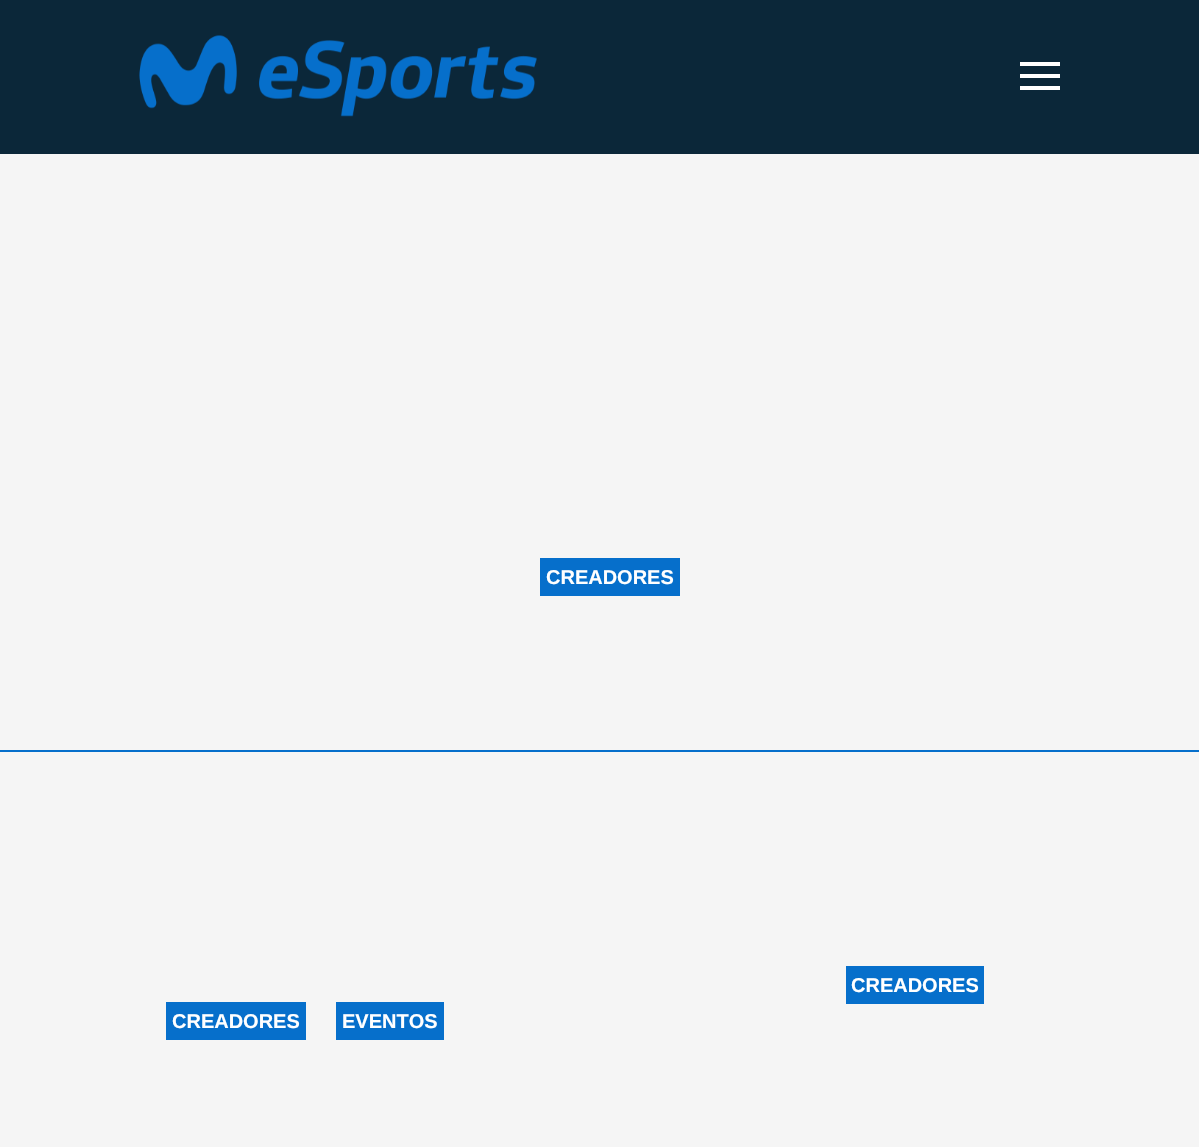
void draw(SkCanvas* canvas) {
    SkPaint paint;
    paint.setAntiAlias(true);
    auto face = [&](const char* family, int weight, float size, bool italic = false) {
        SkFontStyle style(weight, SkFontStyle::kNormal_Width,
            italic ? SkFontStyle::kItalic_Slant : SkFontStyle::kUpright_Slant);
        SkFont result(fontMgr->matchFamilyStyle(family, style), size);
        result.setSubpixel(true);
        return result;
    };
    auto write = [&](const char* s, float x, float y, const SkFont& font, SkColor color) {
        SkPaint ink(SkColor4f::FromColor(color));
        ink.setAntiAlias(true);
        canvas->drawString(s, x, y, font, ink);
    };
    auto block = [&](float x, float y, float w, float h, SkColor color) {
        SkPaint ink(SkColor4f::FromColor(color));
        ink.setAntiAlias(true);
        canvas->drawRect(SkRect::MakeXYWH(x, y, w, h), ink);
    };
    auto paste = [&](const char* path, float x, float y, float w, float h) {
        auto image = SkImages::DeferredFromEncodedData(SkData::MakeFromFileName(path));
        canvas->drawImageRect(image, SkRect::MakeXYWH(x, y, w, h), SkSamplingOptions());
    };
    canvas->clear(SkColorSetRGB(6, 111, 203));
    block(0, 0, 1199, 154, SkColorSetRGB(11, 39, 57));
    paste("pic1.png", 139, 35, 398, 82);
    block(1020, 62, 40, 4, SK_ColorWHITE);
    block(1020, 86, 40, 4, SK_ColorWHITE);
    block(1020, 74, 40, 4, SK_ColorWHITE);
    block(0, 154, 1199, 596, SkColorSetRGB(245, 245, 245));
    block(540, 558, 140, 38, SkColorSetRGB(6, 111, 203));
    auto kFont1 = face("Liberation Sans", 700, 20);
    write("CREADORES", 546, 584, kFont1, SK_ColorWHITE);
    block(0, 752, 1199, 395, SkColorSetRGB(245, 245, 245));
    block(846, 966, 138, 38, SkColorSetRGB(6, 111, 203));
    write("CREADORES", 851, 992, kFont1, SK_ColorWHITE);
    block(166, 1002, 140, 38, SkColorSetRGB(6, 111, 203));
    write("CREADORES", 172, 1028, kFont1, SK_ColorWHITE);
    block(336, 1002, 108, 38, SkColorSetRGB(6, 111, 203));
    write("EVENTOS", 342, 1028, kFont1, SK_ColorWHITE);
}
